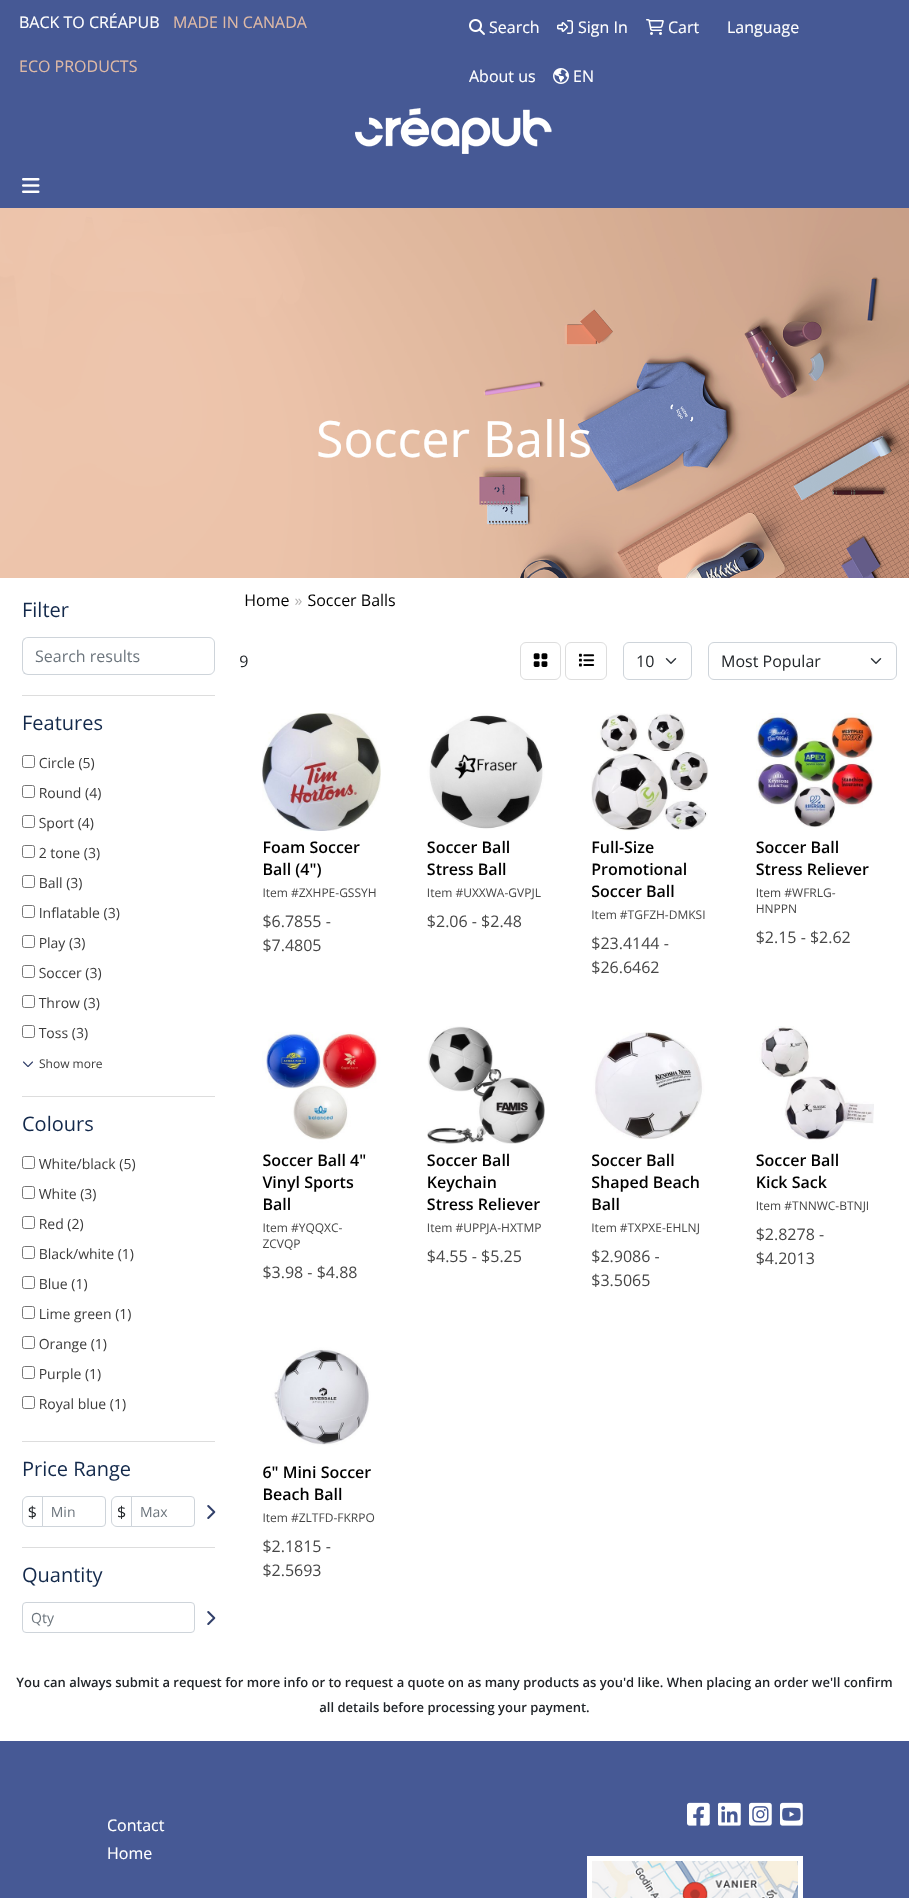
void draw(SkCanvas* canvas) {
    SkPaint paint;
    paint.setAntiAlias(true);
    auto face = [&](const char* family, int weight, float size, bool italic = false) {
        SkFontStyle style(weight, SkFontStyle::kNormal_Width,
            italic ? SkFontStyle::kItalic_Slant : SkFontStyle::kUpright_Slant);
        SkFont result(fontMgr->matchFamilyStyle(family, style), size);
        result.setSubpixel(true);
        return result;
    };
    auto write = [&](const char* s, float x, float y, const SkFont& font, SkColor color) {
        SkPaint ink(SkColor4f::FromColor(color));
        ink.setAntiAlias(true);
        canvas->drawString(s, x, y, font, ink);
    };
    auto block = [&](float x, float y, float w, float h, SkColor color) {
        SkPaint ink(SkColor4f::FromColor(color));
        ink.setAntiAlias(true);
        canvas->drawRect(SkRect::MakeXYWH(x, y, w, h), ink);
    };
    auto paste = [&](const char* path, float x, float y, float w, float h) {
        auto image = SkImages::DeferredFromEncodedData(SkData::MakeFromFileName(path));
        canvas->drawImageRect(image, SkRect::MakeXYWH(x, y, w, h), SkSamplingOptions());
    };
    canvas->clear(SK_ColorWHITE);
    block(0, 0, 909, 208, SkColorSetRGB(70, 89, 149));
    auto kFont1 = face("Open Sans", 400, 16);
    write("BACK TO CRÉAPUB", 19, 28, kFont1, SK_ColorWHITE);
    write("MADE IN CANADA", 173, 28, kFont1, SkColorSetRGB(222, 185, 166));
    write("ECO PRODUCTS", 19, 72, kFont1, SkColorSetRGB(222, 185, 166));
    paste("pic1.png", 469, 19, 16, 16);
    write("Search", 489, 33, kFont1, SK_ColorWHITE);
    paste("pic2.png", 557, 20, 16, 14);
    write("Sign In", 578, 33, kFont1, SK_ColorWHITE);
    paste("pic3.png", 646, 19, 18, 16);
    write("Cart", 668, 33, kFont1, SK_ColorWHITE);
    write("Language", 727, 33, kFont1, SK_ColorWHITE);
    write("About us", 469, 82, kFont1, SK_ColorWHITE);
    paste("pic4.png", 553, 68, 16, 16);
    write("EN", 573, 82, kFont1, SK_ColorWHITE);
    paste("pic5.png", 355, 108, 197, 46);
    paste("pic6.png", 22, 178, 18, 15);
    paste("pic7.png", 0, 208, 909, 370);
    auto kFont2 = face("Open Sans", 400, 50);
    write("Soccer Balls", 316, 457, kFont2, SK_ColorWHITE);
    paste("pic8.png", 16, 593, 881, 1123);
    block(0, 1741, 909, 157, SkColorSetRGB(70, 89, 149));
    write("Contact", 107, 1831, kFont1, SK_ColorWHITE);
    write("Home", 107, 1859, kFont1, SK_ColorWHITE);
    paste("pic9.png", 687, 1802, 23, 24);
    paste("pic10.png", 718, 1802, 23, 24);
    paste("pic11.png", 749, 1802, 23, 24);
    paste("pic12.png", 780, 1802, 23, 24);
    block(587, 1856, 216, 42, SK_ColorWHITE);
    paste("pic13.png", 592, 1861, 206, 37);
}
